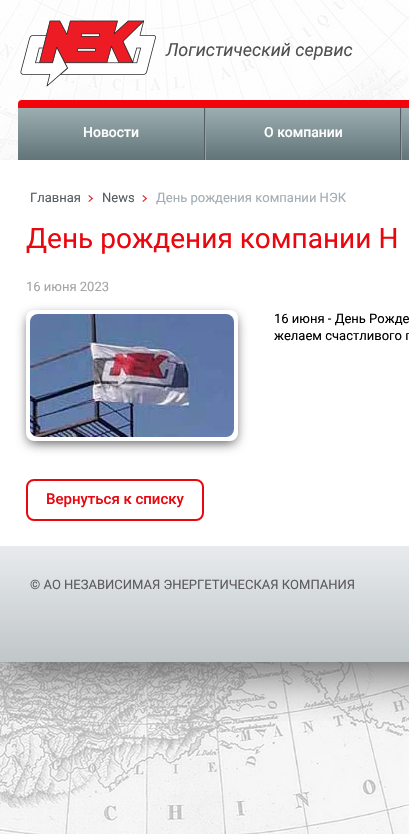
void draw(SkCanvas* canvas) {
    SkPaint paint;
    paint.setAntiAlias(true);
    auto face = [&](const char* family, int weight, float size, bool italic = false) {
        SkFontStyle style(weight, SkFontStyle::kNormal_Width,
            italic ? SkFontStyle::kItalic_Slant : SkFontStyle::kUpright_Slant);
        SkFont result(fontMgr->matchFamilyStyle(family, style), size);
        result.setSubpixel(true);
        return result;
    };
    auto write = [&](const char* s, float x, float y, const SkFont& font, SkColor color) {
        SkPaint ink(SkColor4f::FromColor(color));
        ink.setAntiAlias(true);
        canvas->drawString(s, x, y, font, ink);
    };
    auto block = [&](float x, float y, float w, float h, SkColor color) {
        SkPaint ink(SkColor4f::FromColor(color));
        ink.setAntiAlias(true);
        canvas->drawRect(SkRect::MakeXYWH(x, y, w, h), ink);
    };
    auto card = [&](float x, float y, float w, float h, float radius, SkColor color) {
        SkPaint ink(SkColor4f::FromColor(color));
        ink.setAntiAlias(true);
        canvas->drawRoundRect(SkRect::MakeXYWH(x, y, w, h), radius, radius, ink);
    };
    auto paste = [&](const char* path, float x, float y, float w, float h) {
        auto image = SkImages::DeferredFromEncodedData(SkData::MakeFromFileName(path));
        canvas->drawImageRect(image, SkRect::MakeXYWH(x, y, w, h), SkSamplingOptions());
    };
    canvas->clear(SK_ColorWHITE);
    paste("pic1.png", 0, 0, 409, 834);
    canvas->save();
    canvas->clipRect(SkRect::MakeXYWH(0, 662, 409, 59));
    paint.setColor(SkColorSetRGB(85, 85, 85));
    paint.setMaskFilter(SkMaskFilter::MakeBlur(kNormal_SkBlurStyle, 24));
    canvas->drawRect(SkRect::MakeXYWH(0, 10, 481, 662), paint);
    paint.setMaskFilter(nullptr);
    canvas->restore();
    block(0, 0, 409, 160, SkColorSetARGB(204, 255, 255, 255));
    paste("pic2.png", 20, 20, 136, 67);
    auto kFont1 = face("Roboto", 400, 18, true);
    write("Логистический сервис", 166, 56, kFont1, SkColorSetRGB(81, 81, 81));
    {
        const SkColor colors[] = {SkColorSetRGB(244, 3, 12), SkColorSetRGB(215, 17, 24)};
        const float stops[] = {0, 1};
        const SkPoint ends[] = {{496, 100}, {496, 160}};
        paint.setShader(SkGradientShader::MakeLinear(ends, colors, stops, 2, SkTileMode::kClamp));
        paint.setAlpha(255);
    }
    canvas->drawRoundRect(SkRect::MakeXYWH(18, 100, 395, 60), 4, 4, paint);
    {
        const SkColor colors[] = {SkColorSetRGB(156, 174, 176), SkColorSetRGB(97, 116, 120)};
        const float stops[] = {0, 1};
        const SkPoint ends[] = {{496, 108}, {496, 160}};
        paint.setShader(SkGradientShader::MakeLinear(ends, colors, stops, 2, SkTileMode::kClamp));
        paint.setAlpha(255);
    }
    canvas->drawRect(SkRect::MakeXYWH(206, 108, 203, 52), paint);
    {
        const SkColor colors[] = {SkColorSetRGB(156, 174, 176), SkColorSetRGB(97, 116, 120)};
        const float stops[] = {0, 1};
        const SkPoint ends[] = {{111, 108}, {111, 160}};
        paint.setShader(SkGradientShader::MakeLinear(ends, colors, stops, 2, SkTileMode::kClamp));
        paint.setAlpha(255);
    }
    canvas->drawRect(SkRect::MakeXYWH(18, 108, 186, 52), paint);
    block(204, 108, 1, 52, SkColorSetRGB(83, 93, 99));
    auto kFont2 = face("Roboto", 500, 14);
    write("Новости", 83, 137, kFont2, SK_ColorWHITE);
    block(400, 108, 1, 52, SkColorSetRGB(83, 93, 99));
    block(205, 108, 1, 52, SkColorSetRGB(145, 161, 163));
    write("О компании", 264, 137, kFont2, SK_ColorWHITE);
    block(401, 108, 1, 52, SkColorSetRGB(145, 161, 163));
    block(0, 160, 409, 386, SK_ColorWHITE);
    paste("pic3.png", 88, 195, 5, 7);
    auto kFont3 = face("Roboto", 400, 13);
    write("Главная", 30, 202, kFont3, SkColorSetRGB(83, 93, 99));
    paste("pic3.png", 142, 195, 5, 7);
    write("News", 102, 202, kFont3, SkColorSetRGB(83, 93, 99));
    write("День рождения компании НЭК", 156, 202, kFont3, SkColorSetRGB(162, 173, 180));
    auto kFont4 = face("Roboto", 400, 28);
    write("День рождения компании Н", 26, 248, kFont4, SkColorSetRGB(234, 8, 16));
    write("16 июня 2023", 26, 291, kFont3, SkColorSetRGB(165, 165, 165));
    paint.setShader(nullptr);
    paint.setColor(SkColorSetRGB(85, 85, 85));
    paint.setMaskFilter(SkMaskFilter::MakeBlur(kNormal_SkBlurStyle, 6));
    canvas->drawRoundRect(SkRect::MakeXYWH(28, 316, 208, 127), 6, 6, paint);
    paint.setMaskFilter(nullptr);
    card(26, 310, 212, 131, 8, SK_ColorWHITE);
    paste("pic4.png", 30, 314, 204, 123);
    write("16 июня - День Рожде", 274, 323, kFont3, SK_ColorBLACK);
    write("желаем счастливого п", 274, 340, kFont3, SK_ColorBLACK);
    paint.setStyle(SkPaint::kStroke_Style);
    paint.setStrokeWidth(2);
    paint.setColor(SkColorSetRGB(234, 8, 16));
    canvas->drawRoundRect(SkRect::MakeXYWH(27, 480, 176, 40), 7, 7, paint);
    auto kFont5 = face("Roboto", 500, 15);
    write("Вернуться к списку", 46, 504, kFont5, SkColorSetRGB(234, 8, 16));
    paint.setStyle(SkPaint::kFill_Style);
    {
        const SkColor colors[] = {SkColorSetRGB(231, 235, 238), SkColorSetRGB(193, 198, 200)};
        const float stops[] = {0, 1};
        const SkPoint ends[] = {{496, 546}, {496, 662}};
        paint.setShader(SkGradientShader::MakeLinear(ends, colors, stops, 2, SkTileMode::kClamp));
        paint.setAlpha(255);
    }
    canvas->drawRect(SkRect::MakeXYWH(0, 546, 409, 116), paint);
    write("© АО НЕЗАВИСИМАЯ ЭНЕРГЕТИЧЕСКАЯ КОМПАНИЯ", 30, 589, kFont3, SkColorSetRGB(92, 92, 92));
}
